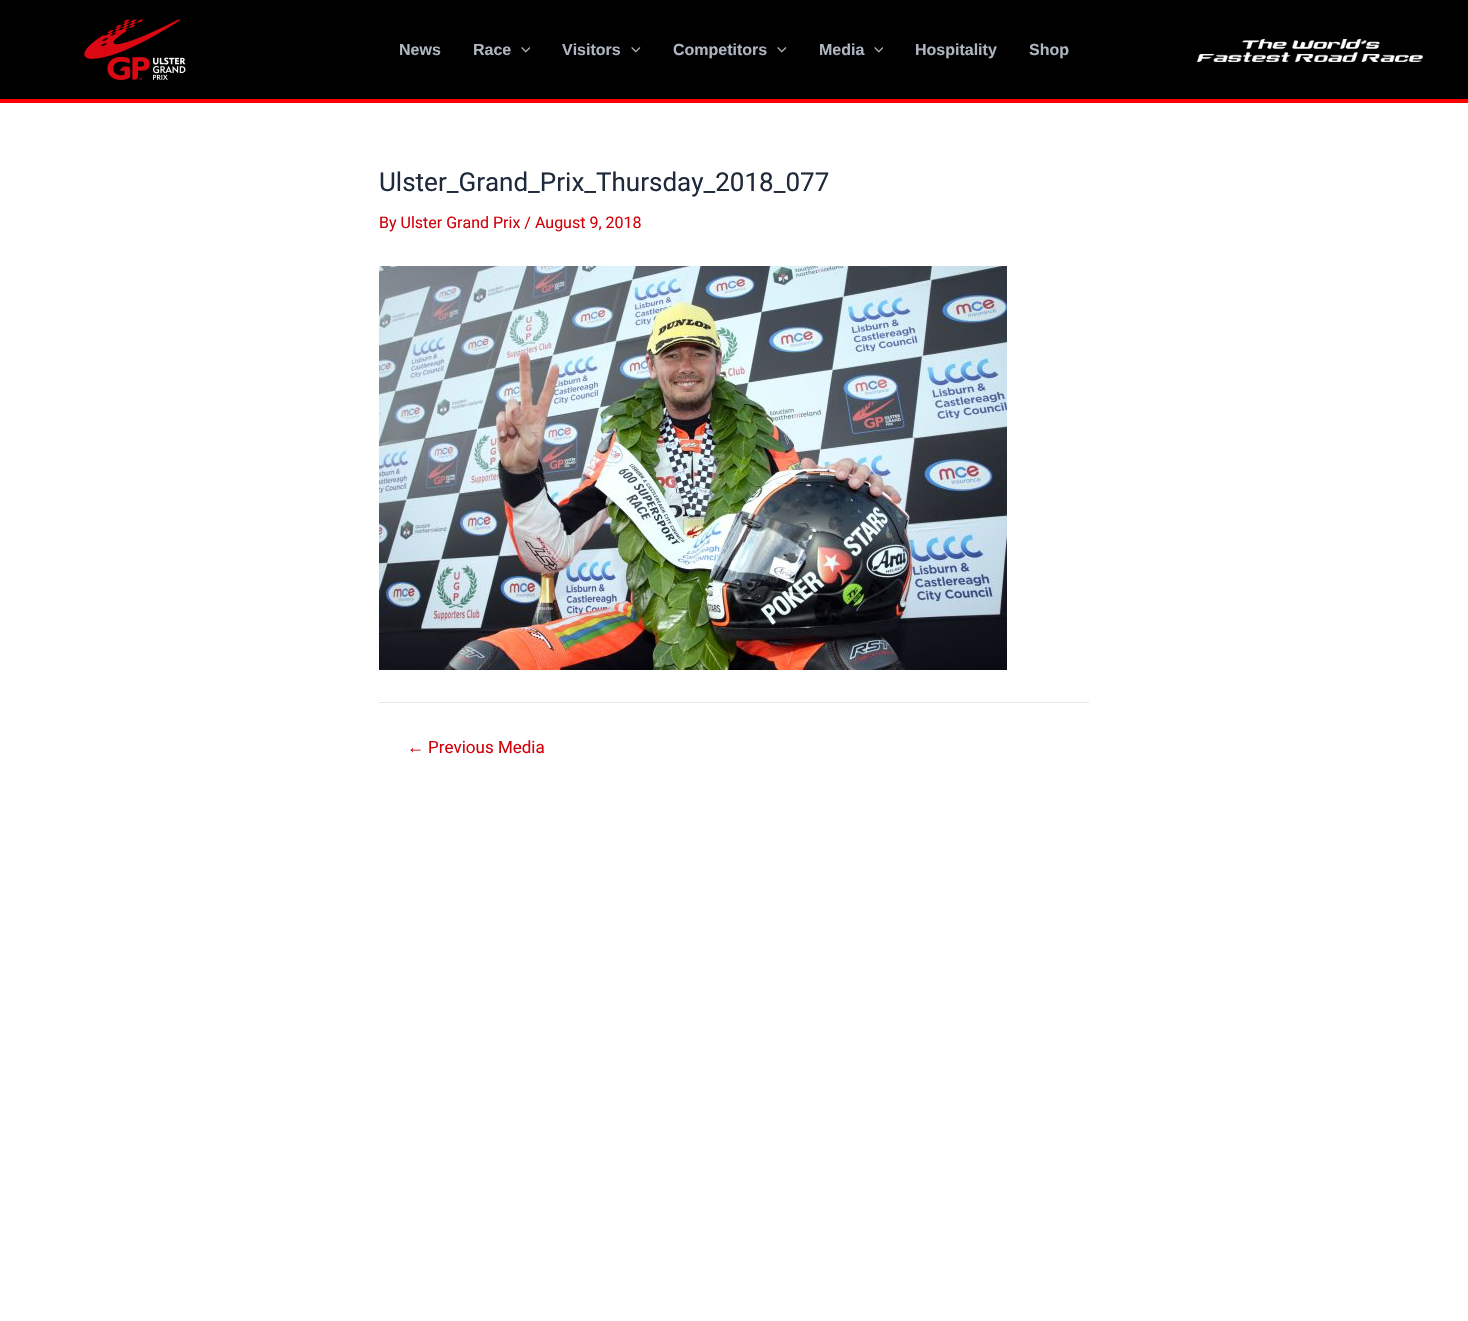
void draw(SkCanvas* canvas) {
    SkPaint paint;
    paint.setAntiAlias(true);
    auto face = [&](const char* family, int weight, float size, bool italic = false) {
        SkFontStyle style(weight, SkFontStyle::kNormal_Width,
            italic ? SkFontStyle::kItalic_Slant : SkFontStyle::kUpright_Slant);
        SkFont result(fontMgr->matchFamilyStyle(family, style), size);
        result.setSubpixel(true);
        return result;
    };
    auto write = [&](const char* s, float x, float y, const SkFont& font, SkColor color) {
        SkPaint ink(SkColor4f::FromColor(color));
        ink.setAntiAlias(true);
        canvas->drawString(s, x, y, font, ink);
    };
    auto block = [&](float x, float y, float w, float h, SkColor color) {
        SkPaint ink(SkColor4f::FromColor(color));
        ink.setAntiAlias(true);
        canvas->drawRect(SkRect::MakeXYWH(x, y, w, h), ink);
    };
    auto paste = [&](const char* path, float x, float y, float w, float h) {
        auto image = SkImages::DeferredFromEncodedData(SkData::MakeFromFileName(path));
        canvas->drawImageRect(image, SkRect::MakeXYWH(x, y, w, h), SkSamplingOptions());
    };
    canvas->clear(SK_ColorWHITE);
    block(0, 0, 1468, 99, SK_ColorBLACK);
    block(0, 99, 1468, 4, SkColorSetRGB(255, 0, 0));
    paste("pic1.png", 84, 19, 102, 61);
    auto kFont1 = face("Liberation Sans", 700, 16);
    write("News", 399, 55, kFont1, SkColorSetRGB(174, 182, 194));
    write("Race", 473, 55, kFont1, SkColorSetRGB(174, 182, 194));
    paste("pic2.png", 521, 47, 9, 6);
    write("Visitors", 562, 55, kFont1, SkColorSetRGB(174, 182, 194));
    paste("pic3.png", 631, 47, 10, 6);
    write("Competitors", 673, 55, kFont1, SkColorSetRGB(174, 182, 194));
    paste("pic3.png", 777, 47, 10, 6);
    write("Media", 819, 55, kFont1, SkColorSetRGB(174, 182, 194));
    paste("pic2.png", 874, 47, 9, 6);
    write("Hospitality", 915, 55, kFont1, SkColorSetRGB(174, 182, 194));
    write("Shop", 1029, 55, kFont1, SkColorSetRGB(174, 182, 194));
    paste("pic4.png", 1197, 39, 226, 23);
    auto kFont2 = face("Roboto", 400, 26);
    write("Ulster_Grand_Prix_Thursday_2018_077", 379, 191, kFont2, SkColorSetRGB(30, 41, 59));
    auto kFont3 = face("Roboto", 400, 16);
    write("By Ulster Grand Prix / August 9, 2018", 379, 228, kFont3, SkColorSetRGB(209, 4, 12));
    paste("pic5.png", 379, 266, 628, 404);
    block(379, 702, 710, 1, SkColorSetRGB(226, 232, 240));
    auto kFont4 = face("Liberation Sans", 400, 17);
    write("←", 407, 753, kFont4, SkColorSetRGB(209, 4, 12));
    auto kFont5 = face("Roboto", 400, 17);
    write("Previous Media", 428, 753, kFont5, SkColorSetRGB(209, 4, 12));
}
